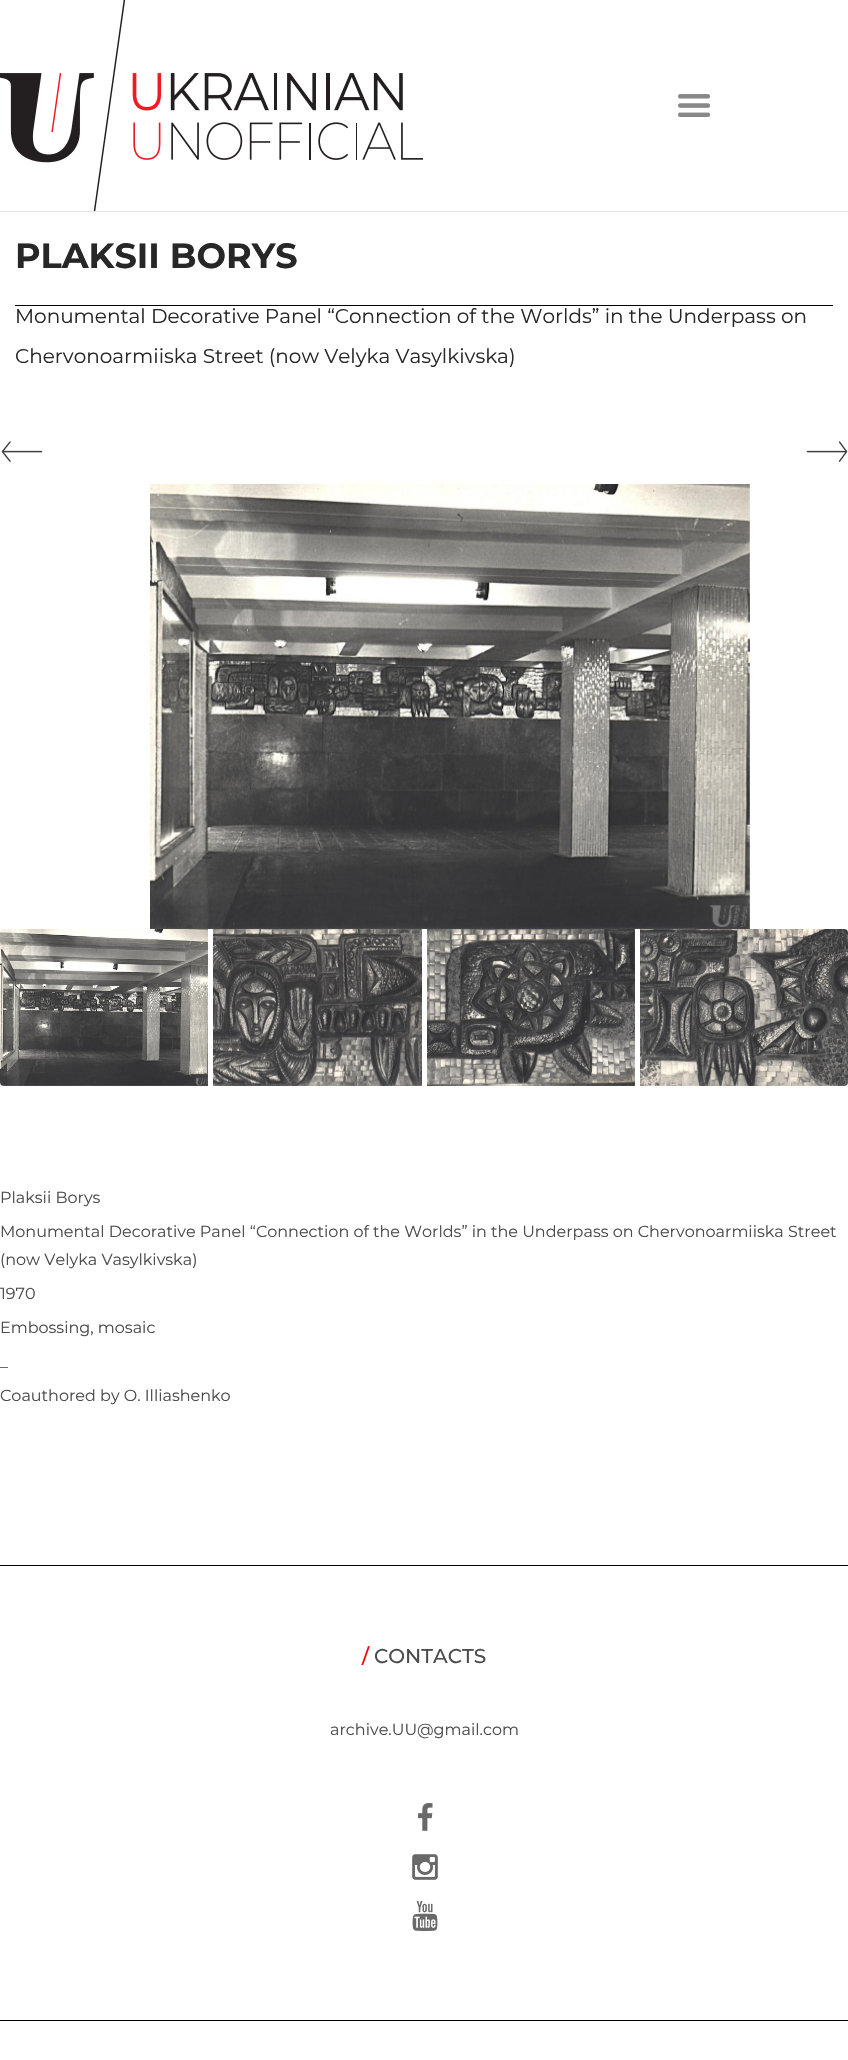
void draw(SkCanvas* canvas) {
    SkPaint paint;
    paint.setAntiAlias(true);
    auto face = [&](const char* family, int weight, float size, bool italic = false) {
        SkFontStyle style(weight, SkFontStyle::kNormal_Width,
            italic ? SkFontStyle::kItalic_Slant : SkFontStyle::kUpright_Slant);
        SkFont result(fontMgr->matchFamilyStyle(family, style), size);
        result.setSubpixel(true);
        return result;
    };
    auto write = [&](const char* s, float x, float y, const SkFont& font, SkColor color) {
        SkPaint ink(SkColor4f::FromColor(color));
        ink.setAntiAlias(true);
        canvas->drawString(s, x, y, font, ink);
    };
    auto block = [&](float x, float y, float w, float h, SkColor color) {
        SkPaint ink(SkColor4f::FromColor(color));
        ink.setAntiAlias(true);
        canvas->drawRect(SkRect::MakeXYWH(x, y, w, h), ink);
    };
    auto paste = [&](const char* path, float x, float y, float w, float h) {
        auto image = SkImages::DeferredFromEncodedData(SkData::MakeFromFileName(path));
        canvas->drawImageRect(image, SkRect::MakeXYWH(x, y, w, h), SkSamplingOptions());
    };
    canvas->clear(SK_ColorWHITE);
    block(0, 211, 848, 1, SkColorSetRGB(228, 228, 228));
    paste("pic1.png", 0, 0, 423, 211);
    paste("pic2.png", 678, 94, 32, 23);
    auto kFont1 = face("Montserrat", 700, 35);
    write("PLAKSII BORYS", 15, 268, kFont1, SkColorSetRGB(39, 39, 39));
    block(15, 305, 818, 1, SK_ColorBLACK);
    auto kFont2 = face("Montserrat", 400, 20);
    write("Monumental Decorative Panel “Connection of the Worlds” in the Underpass on", 15, 323, kFont2, SkColorSetRGB(39, 39, 39));
    write("Chervonoarmiiska Street (now Velyka Vasylkivska)", 15, 363, kFont2, SkColorSetRGB(39, 39, 39));
    block(0, 1565, 848, 1, SK_ColorBLACK);
    paste("pic3.png", 1, 441, 42, 21);
    paste("pic4.png", 806, 441, 42, 21);
    paste("pic5.png", 150, 484, 600, 445);
    paste("pic6.png", 0, 929, 208, 157);
    paste("pic7.png", 213, 929, 209, 157);
    paste("pic8.png", 427, 929, 208, 157);
    paste("pic9.png", 640, 929, 208, 157);
    auto kFont3 = face("Montserrat", 400, 16);
    write("Plaksii Borys", 0, 1203, kFont3, SkColorSetRGB(76, 76, 76));
    write("Monumental Decorative Panel “Connection of the Worlds” in the Underpass on Chervonoarmiiska Street", 0, 1237, kFont3, SkColorSetRGB(76, 76, 76));
    write("(now Velyka Vasylkivska)", 0, 1265, kFont3, SkColorSetRGB(76, 76, 76));
    write("1970", 0, 1299, kFont3, SkColorSetRGB(76, 76, 76));
    write("Embossing, mosaic", 0, 1333, kFont3, SkColorSetRGB(76, 76, 76));
    write("_", 0, 1367, kFont3, SkColorSetRGB(76, 76, 76));
    write("Coauthored by O. Illiashenko", 0, 1401, kFont3, SkColorSetRGB(76, 76, 76));
    block(0, 2020, 848, 1, SK_ColorBLACK);
    auto kFont4 = face("Montserrat", 500, 20);
    write("/", 362, 1663, kFont4, SkColorSetRGB(255, 0, 0));
    write("CONTACTS", 374, 1663, kFont4, SkColorSetRGB(76, 76, 76));
    write("archive.UU@gmail.com", 330, 1735, kFont3, SkColorSetRGB(76, 76, 76));
    paste("pic10.png", 418, 1803, 15, 28);
    paste("pic11.png", 412, 1854, 26, 26);
    paste("pic12.png", 412, 1901, 26, 30);
}
